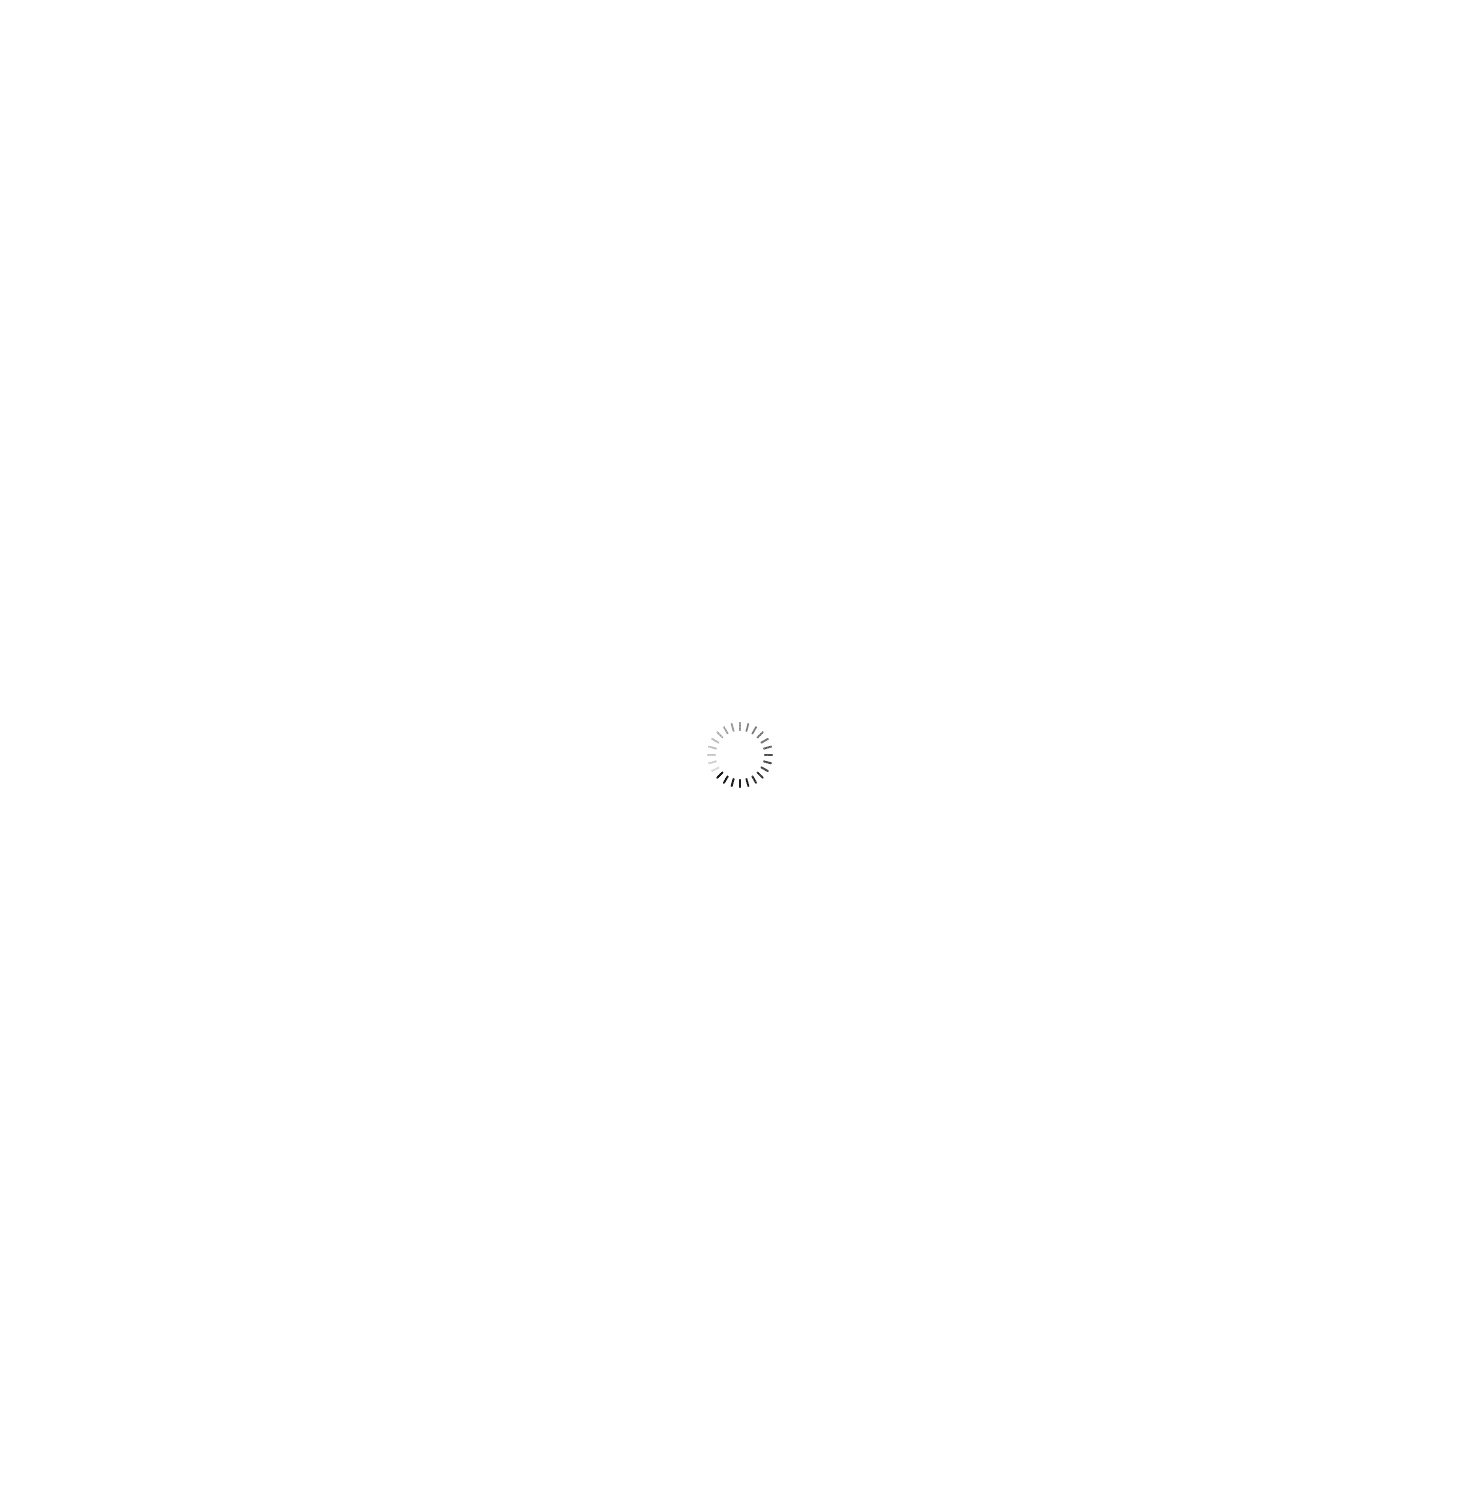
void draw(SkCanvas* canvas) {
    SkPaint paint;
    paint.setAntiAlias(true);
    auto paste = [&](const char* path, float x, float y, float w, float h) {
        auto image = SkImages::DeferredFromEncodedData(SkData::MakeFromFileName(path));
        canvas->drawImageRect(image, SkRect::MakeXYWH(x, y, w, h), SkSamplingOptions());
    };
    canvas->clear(SK_ColorWHITE);
    paste("pic1.png", 707, 722, 66, 66);
}
